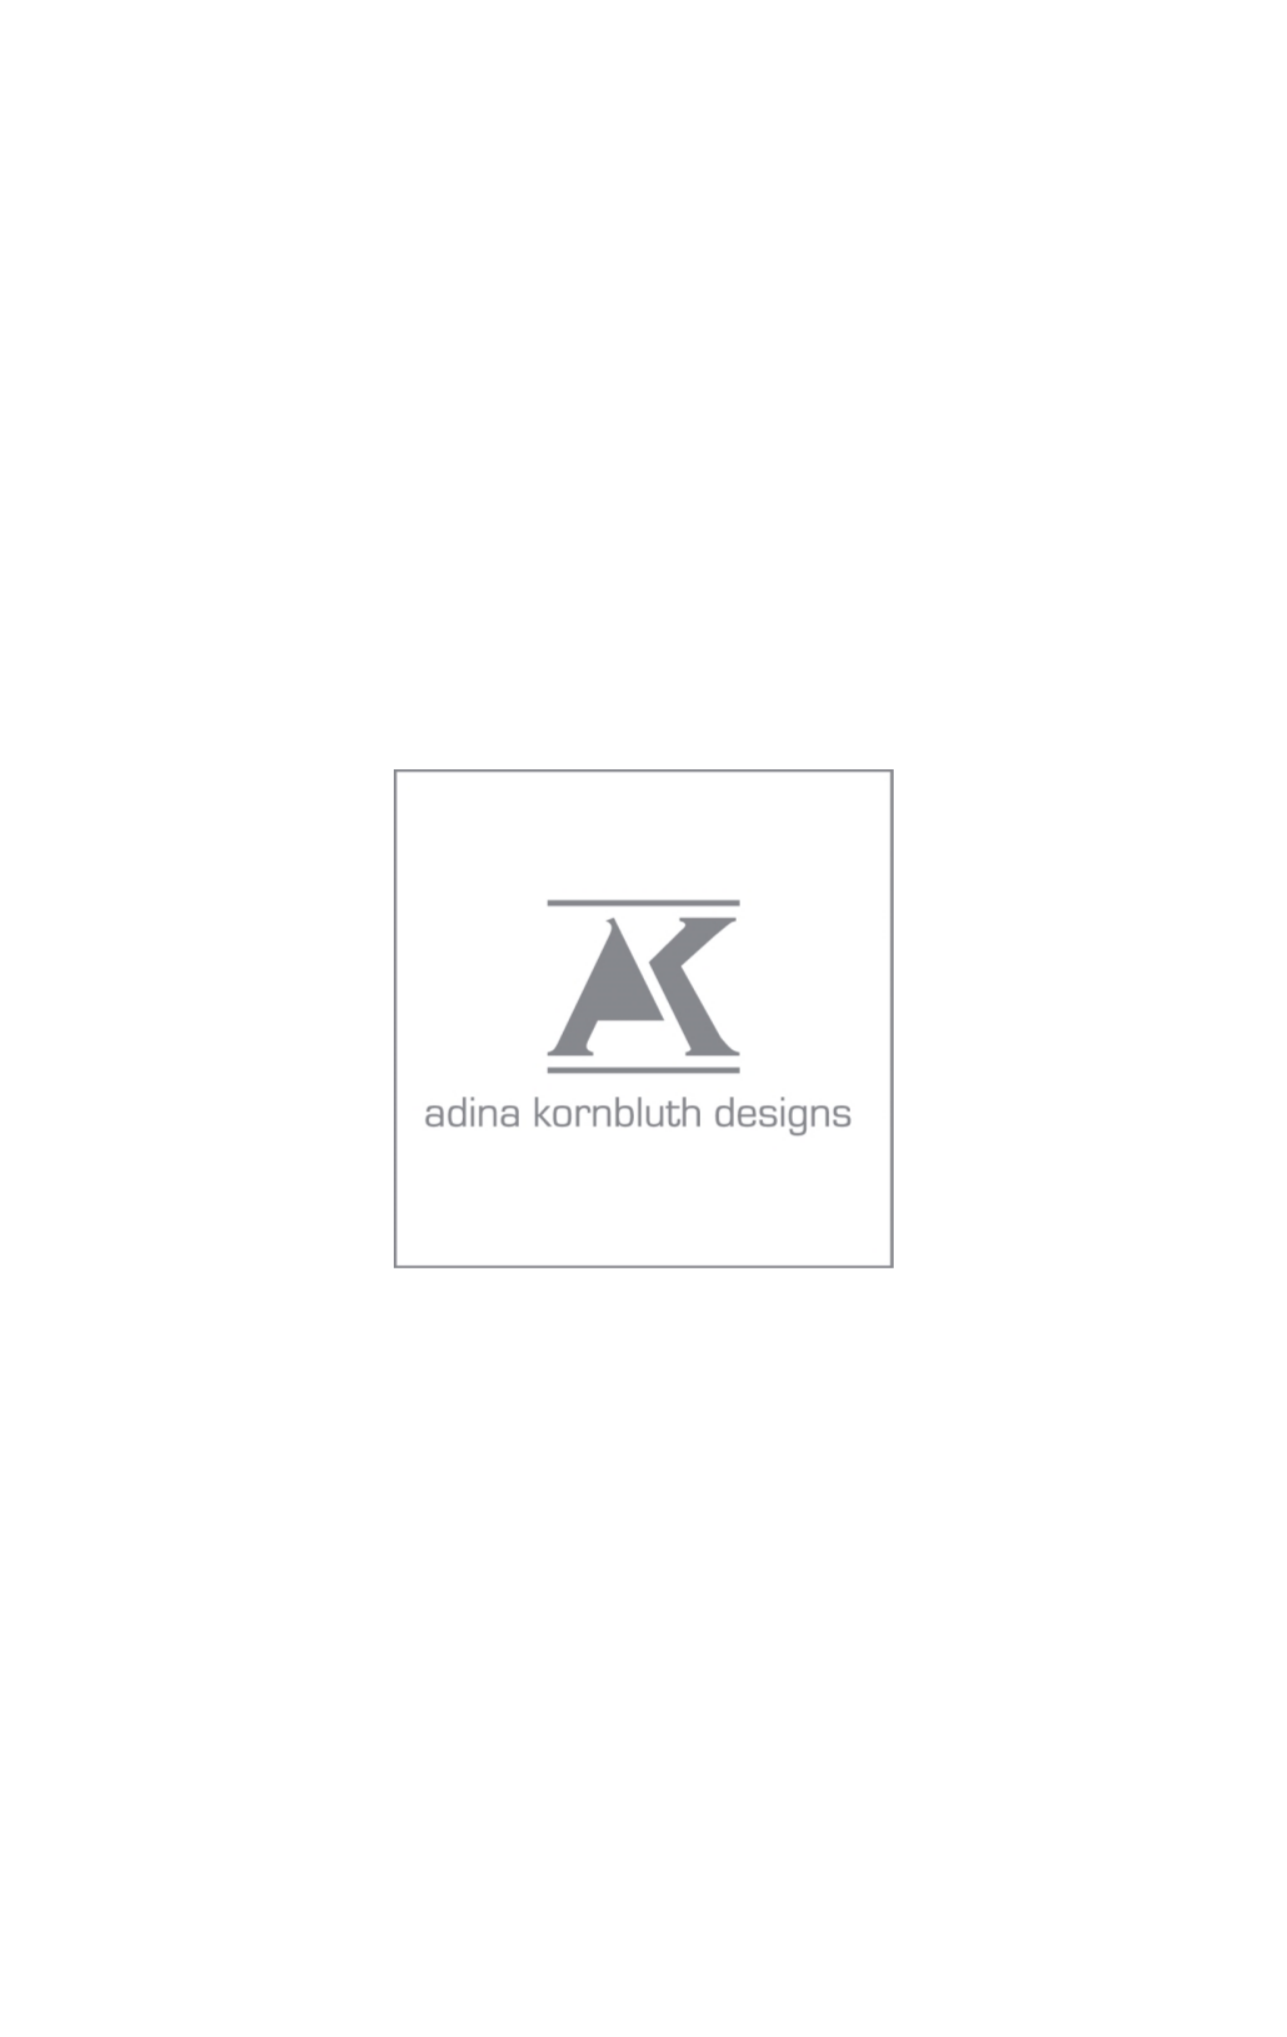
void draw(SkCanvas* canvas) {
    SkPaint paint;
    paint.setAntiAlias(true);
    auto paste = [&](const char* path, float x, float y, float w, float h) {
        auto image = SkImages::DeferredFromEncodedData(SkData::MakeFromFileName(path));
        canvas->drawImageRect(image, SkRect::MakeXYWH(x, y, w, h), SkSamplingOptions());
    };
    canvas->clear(SK_ColorWHITE);
    paste("pic1.png", 393, 769, 501, 500);
}
